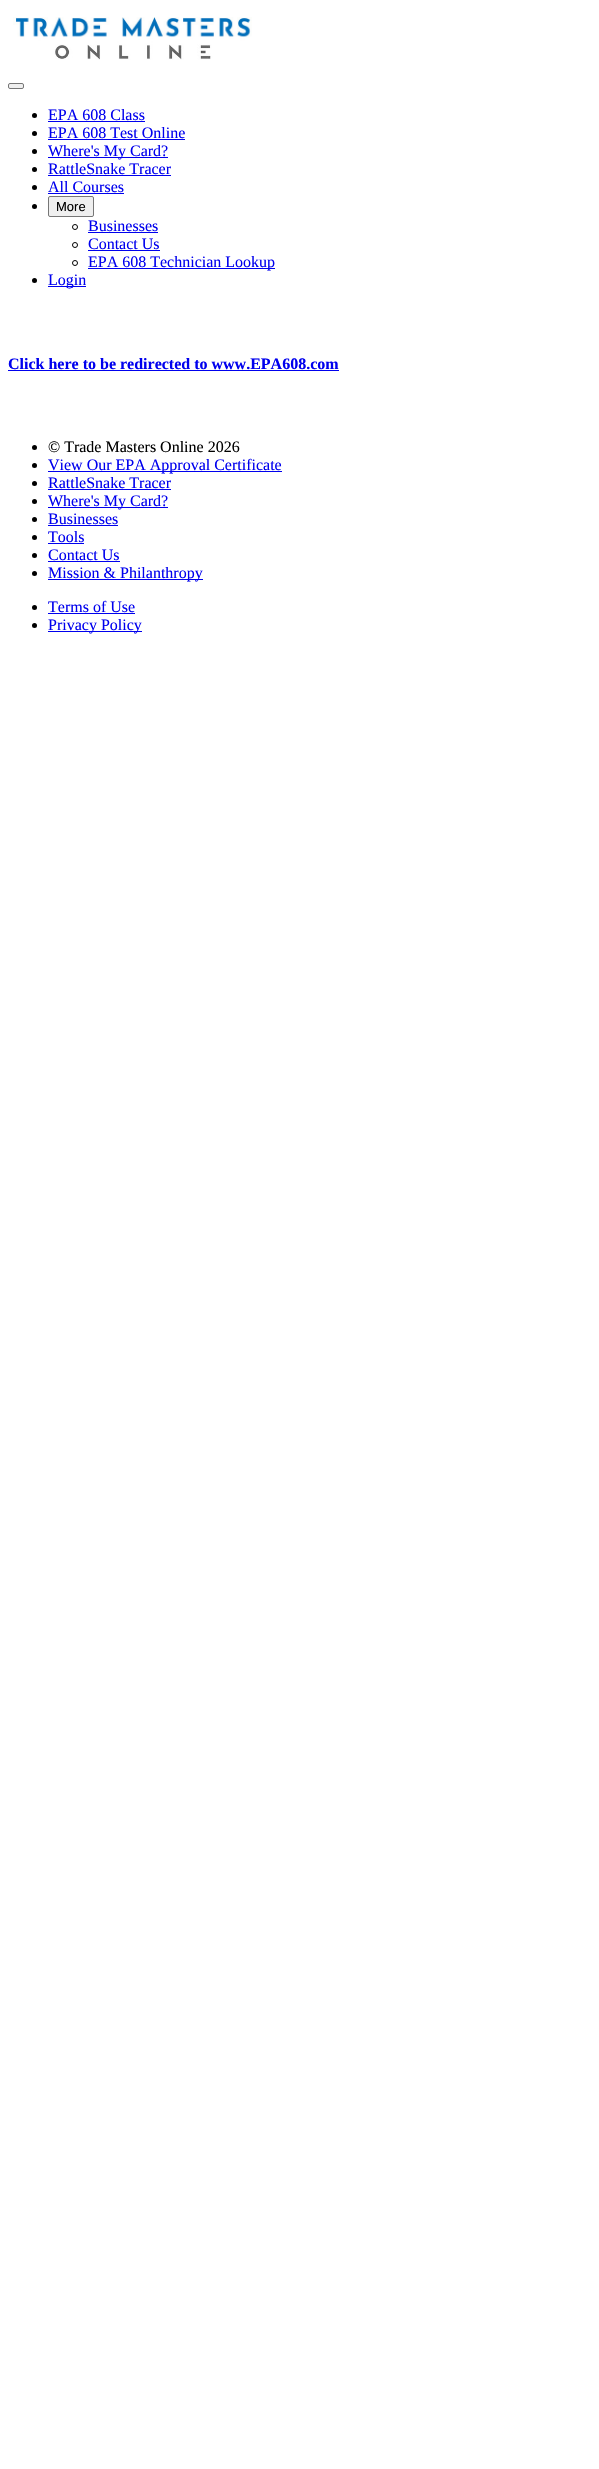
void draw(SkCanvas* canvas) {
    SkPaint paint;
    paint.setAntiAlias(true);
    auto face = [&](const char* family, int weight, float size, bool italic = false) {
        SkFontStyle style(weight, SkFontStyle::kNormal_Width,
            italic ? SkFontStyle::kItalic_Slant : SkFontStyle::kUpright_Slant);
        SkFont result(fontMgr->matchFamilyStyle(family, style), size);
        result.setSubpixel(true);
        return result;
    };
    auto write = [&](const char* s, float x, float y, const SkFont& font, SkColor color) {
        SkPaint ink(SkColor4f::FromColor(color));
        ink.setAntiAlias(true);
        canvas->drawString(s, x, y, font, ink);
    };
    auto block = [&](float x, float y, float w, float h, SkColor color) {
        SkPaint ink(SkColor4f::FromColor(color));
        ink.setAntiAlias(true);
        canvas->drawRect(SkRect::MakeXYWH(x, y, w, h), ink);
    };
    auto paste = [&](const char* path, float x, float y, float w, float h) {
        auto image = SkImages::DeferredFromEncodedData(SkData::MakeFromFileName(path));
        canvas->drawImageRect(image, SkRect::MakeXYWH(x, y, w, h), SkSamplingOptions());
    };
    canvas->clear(SK_ColorWHITE);
    paste("pic1.png", 13, 17, 239, 43);
    paint.setColor(SkColorSetRGB(239, 239, 239));
    canvas->drawRoundRect(SkRect::MakeXYWH(8.5f, 83.5f, 15, 5), 1.5f, 1.5f, paint);
    paint.setStyle(SkPaint::kStroke_Style);
    paint.setStrokeWidth(1);
    paint.setColor(SkColorSetRGB(118, 118, 118));
    canvas->drawRoundRect(SkRect::MakeXYWH(8.5f, 83.5f, 15, 5), 1.5f, 1.5f, paint);
    paint.setStyle(SkPaint::kFill_Style);
    paint.setColor(SK_ColorBLACK);
    canvas->drawCircle(34.5f, 115.5f, 2.5f, paint);
    auto kFont1 = face("Liberation Serif", 400, 16);
    write("EPA 608 Class", 48, 120, kFont1, SkColorSetRGB(0, 0, 238));
    block(48, 121, 97, 1, SkColorSetRGB(0, 0, 238));
    canvas->drawCircle(34.5f, 133.5f, 2.5f, paint);
    write("EPA 608 Test Online", 48, 138, kFont1, SkColorSetRGB(0, 0, 238));
    block(48, 139, 137, 1, SkColorSetRGB(0, 0, 238));
    canvas->drawCircle(34.5f, 151.5f, 2.5f, paint);
    block(48, 157, 120, 1, SkColorSetRGB(0, 0, 238));
    write("Where's My Card?", 48, 156, kFont1, SkColorSetRGB(0, 0, 238));
    canvas->drawCircle(34.5f, 169.5f, 2.5f, paint);
    write("RattleSnake Tracer", 48, 174, kFont1, SkColorSetRGB(0, 0, 238));
    block(48, 175, 123, 1, SkColorSetRGB(0, 0, 238));
    canvas->drawCircle(34.5f, 187.5f, 2.5f, paint);
    write("All Courses", 48, 192, kFont1, SkColorSetRGB(0, 0, 238));
    block(48, 193, 76, 1, SkColorSetRGB(0, 0, 238));
    canvas->drawCircle(34.5f, 206.5f, 2.5f, paint);
    paint.setColor(SkColorSetRGB(239, 239, 239));
    canvas->drawRoundRect(SkRect::MakeXYWH(48.5f, 196.5f, 45, 20), 1.5f, 1.5f, paint);
    paint.setStyle(SkPaint::kStroke_Style);
    paint.setColor(SkColorSetRGB(118, 118, 118));
    canvas->drawRoundRect(SkRect::MakeXYWH(48.5f, 196.5f, 45, 20), 1.5f, 1.5f, paint);
    auto kFont2 = face("Liberation Sans", 400, 13);
    write("More", 56, 211, kFont2, SK_ColorBLACK);
    paint.setColor(SK_ColorBLACK);
    canvas->drawCircle(75, 227, 2.5f, paint);
    write("Businesses", 88, 231, kFont1, SkColorSetRGB(0, 0, 238));
    block(88, 232, 70, 1, SkColorSetRGB(0, 0, 238));
    canvas->drawCircle(75, 245, 2.5f, paint);
    write("Contact Us", 88, 249, kFont1, SkColorSetRGB(0, 0, 238));
    block(88, 250, 72, 1, SkColorSetRGB(0, 0, 238));
    canvas->drawCircle(75, 263, 2.5f, paint);
    block(88, 268, 187, 1, SkColorSetRGB(0, 0, 238));
    write("EPA 608 Technician Lookup", 88, 267, kFont1, SkColorSetRGB(0, 0, 238));
    paint.setStyle(SkPaint::kFill_Style);
    canvas->drawCircle(34.5f, 280.5f, 2.5f, paint);
    block(48, 286, 38, 1, SkColorSetRGB(0, 0, 238));
    write("Login", 48, 285, kFont1, SkColorSetRGB(0, 0, 238));
    auto kFont3 = face("Liberation Serif", 700, 16);
    write("Click here to be redirected to www.EPA608.com", 8, 369, kFont3, SkColorSetRGB(0, 0, 238));
    block(8, 370, 331, 1, SkColorSetRGB(0, 0, 238));
    canvas->drawCircle(34.5f, 447.5f, 2.5f, paint);
    write("© Trade Masters Online 2026", 48, 452, kFont1, SK_ColorBLACK);
    canvas->drawCircle(34.5f, 465.5f, 2.5f, paint);
    block(48, 471, 234, 1, SkColorSetRGB(0, 0, 238));
    write("View Our EPA Approval Certificate", 48, 470, kFont1, SkColorSetRGB(0, 0, 238));
    canvas->drawCircle(34.5f, 483.5f, 2.5f, paint);
    write("RattleSnake Tracer", 48, 488, kFont1, SkColorSetRGB(0, 0, 238));
    block(48, 489, 123, 1, SkColorSetRGB(0, 0, 238));
    canvas->drawCircle(34.5f, 501.5f, 2.5f, paint);
    block(48, 507, 120, 1, SkColorSetRGB(0, 0, 238));
    write("Where's My Card?", 48, 506, kFont1, SkColorSetRGB(0, 0, 238));
    canvas->drawCircle(34.5f, 519.5f, 2.5f, paint);
    write("Businesses", 48, 524, kFont1, SkColorSetRGB(0, 0, 238));
    block(48, 525, 70, 1, SkColorSetRGB(0, 0, 238));
    canvas->drawCircle(34.5f, 537.5f, 2.5f, paint);
    write("Tools", 48, 542, kFont1, SkColorSetRGB(0, 0, 238));
    block(48, 543, 36, 1, SkColorSetRGB(0, 0, 238));
    canvas->drawCircle(34.5f, 555.5f, 2.5f, paint);
    write("Contact Us", 48, 560, kFont1, SkColorSetRGB(0, 0, 238));
    block(48, 561, 72, 1, SkColorSetRGB(0, 0, 238));
    canvas->drawCircle(34.5f, 573.5f, 2.5f, paint);
    block(48, 579, 155, 1, SkColorSetRGB(0, 0, 238));
    write("Mission & Philanthropy", 48, 578, kFont1, SkColorSetRGB(0, 0, 238));
    canvas->drawCircle(34.5f, 607.5f, 2.5f, paint);
    write("Terms of Use", 48, 612, kFont1, SkColorSetRGB(0, 0, 238));
    block(48, 613, 87, 1, SkColorSetRGB(0, 0, 238));
    canvas->drawCircle(34.5f, 625.5f, 2.5f, paint);
    block(48, 631, 94, 1, SkColorSetRGB(0, 0, 238));
    write("Privacy Policy", 48, 630, kFont1, SkColorSetRGB(0, 0, 238));
}
